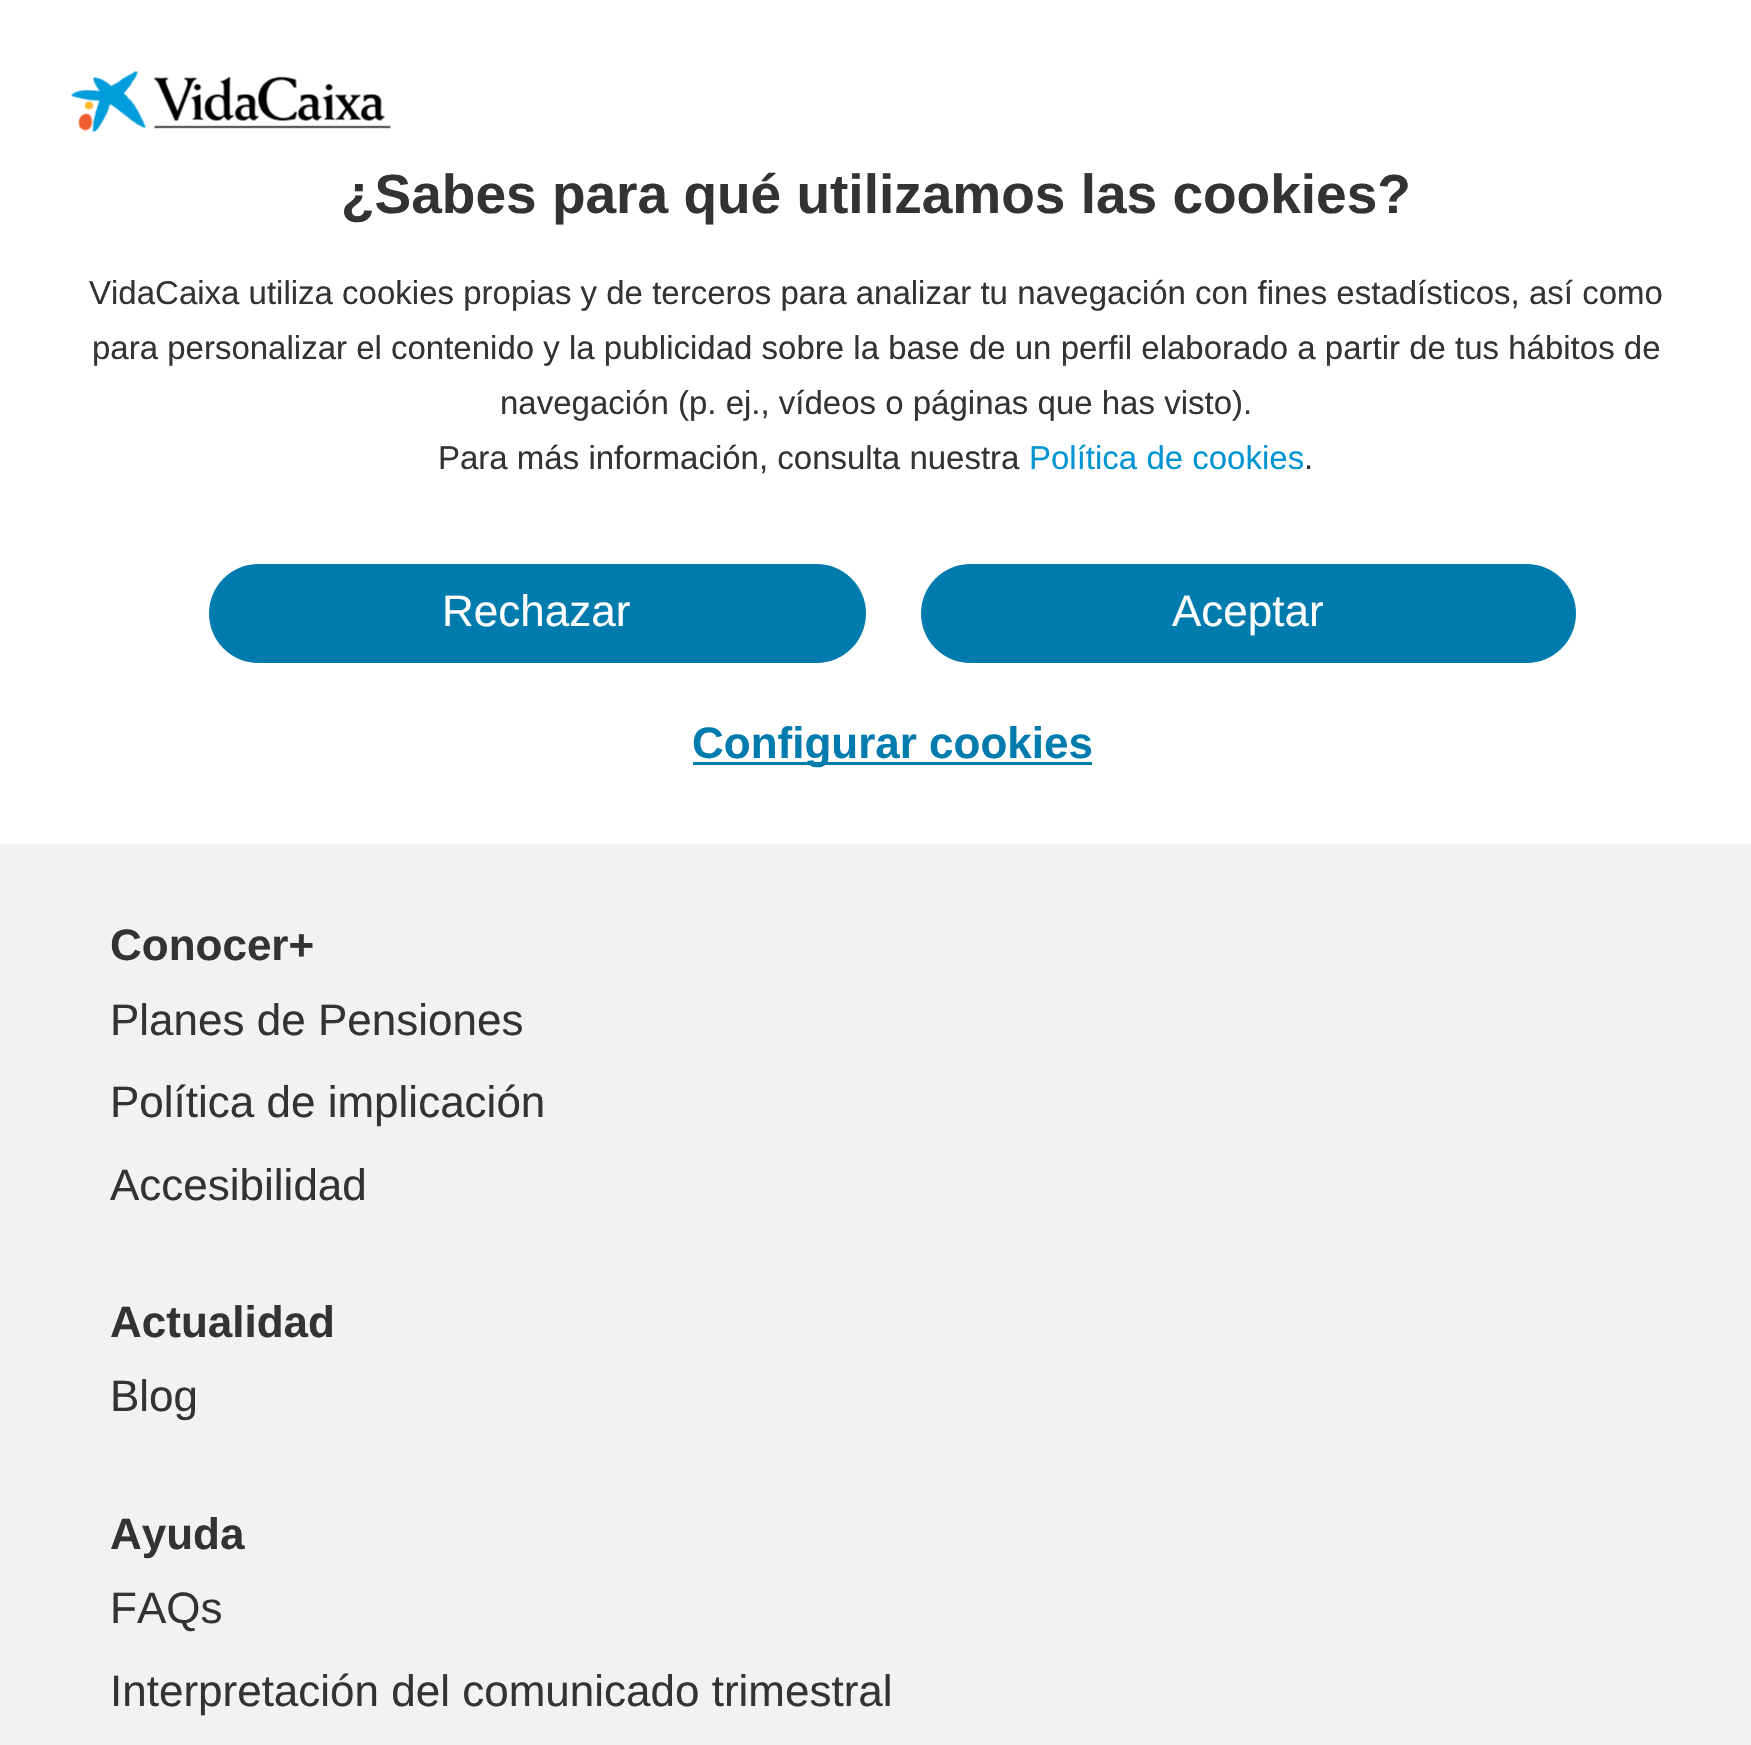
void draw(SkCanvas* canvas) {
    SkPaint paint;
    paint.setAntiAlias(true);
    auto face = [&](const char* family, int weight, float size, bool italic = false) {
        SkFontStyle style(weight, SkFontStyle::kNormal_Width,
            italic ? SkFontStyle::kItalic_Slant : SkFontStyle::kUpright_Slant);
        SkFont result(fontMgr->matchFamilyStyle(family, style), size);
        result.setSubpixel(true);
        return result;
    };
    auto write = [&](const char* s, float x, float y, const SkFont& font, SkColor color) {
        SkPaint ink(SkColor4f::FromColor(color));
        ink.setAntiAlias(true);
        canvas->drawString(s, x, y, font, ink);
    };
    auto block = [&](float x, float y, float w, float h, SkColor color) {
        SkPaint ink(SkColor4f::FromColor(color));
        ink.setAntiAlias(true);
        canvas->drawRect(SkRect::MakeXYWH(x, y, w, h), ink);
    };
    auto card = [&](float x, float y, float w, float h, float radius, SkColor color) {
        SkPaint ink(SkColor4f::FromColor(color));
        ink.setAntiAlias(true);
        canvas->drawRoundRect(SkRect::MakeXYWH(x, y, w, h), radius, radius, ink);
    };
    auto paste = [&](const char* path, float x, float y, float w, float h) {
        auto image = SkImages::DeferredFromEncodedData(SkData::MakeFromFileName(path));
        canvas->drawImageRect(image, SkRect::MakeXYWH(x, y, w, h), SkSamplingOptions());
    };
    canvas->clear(SkColorSetRGB(242, 242, 242));
    block(0, 0, 1751, 844, SK_ColorWHITE);
    paste("pic1.png", 71, 71, 320, 62);
    auto kFont1 = face("Liberation Sans", 700, 55);
    write("¿Sabes para qué utilizamos las cookies?", 341, 213, kFont1, SkColorSetRGB(51, 51, 51));
    auto kFont2 = face("Liberation Sans", 400, 33);
    write("VidaCaixa utiliza cookies propias y de terceros para analizar tu navegación con fines estadísticos, así como", 89, 304, kFont2, SkColorSetRGB(51, 51, 51));
    write("para personalizar el contenido y la publicidad sobre la base de un perfil elaborado a partir de tus hábitos de", 92, 359, kFont2, SkColorSetRGB(51, 51, 51));
    write("navegación (p. ej., vídeos o páginas que has visto).", 500, 414, kFont2, SkColorSetRGB(51, 51, 51));
    write("Para más información, consulta nuestra", 438, 469, kFont2, SkColorSetRGB(51, 51, 51));
    write("Política de cookies", 1029, 469, kFont2, SkColorSetRGB(0, 148, 210));
    write(".", 1304, 469, kFont2, SkColorSetRGB(51, 51, 51));
    card(209, 564, 657, 99, 49.5f, SkColorSetRGB(0, 123, 173));
    auto kFont3 = face("Liberation Sans", 400, 44);
    write("Rechazar", 442, 626, kFont3, SK_ColorWHITE);
    card(921, 564, 655, 99, 49.5f, SkColorSetRGB(0, 123, 173));
    write("Aceptar", 1172, 626, kFont3, SK_ColorWHITE);
    block(693, 762, 399, 3, SkColorSetRGB(0, 123, 173));
    auto kFont4 = face("Liberation Sans", 700, 44);
    write("Configurar cookies", 692, 758, kFont4, SkColorSetRGB(0, 123, 173));
    write("Conocer+", 110, 960, kFont4, SkColorSetRGB(51, 51, 51));
    write("Planes de Pensiones", 110, 1035, kFont3, SkColorSetRGB(51, 51, 51));
    write("Política de implicación", 110, 1117, kFont3, SkColorSetRGB(51, 51, 51));
    write("Accesibilidad", 110, 1200, kFont3, SkColorSetRGB(51, 51, 51));
    write("Actualidad", 110, 1337, kFont4, SkColorSetRGB(51, 51, 51));
    write("Blog", 110, 1411, kFont3, SkColorSetRGB(51, 51, 51));
    write("Ayuda", 110, 1549, kFont4, SkColorSetRGB(51, 51, 51));
    write("FAQs", 110, 1623, kFont3, SkColorSetRGB(51, 51, 51));
    write("Interpretación del comunicado trimestral", 110, 1706, kFont3, SkColorSetRGB(51, 51, 51));
}
